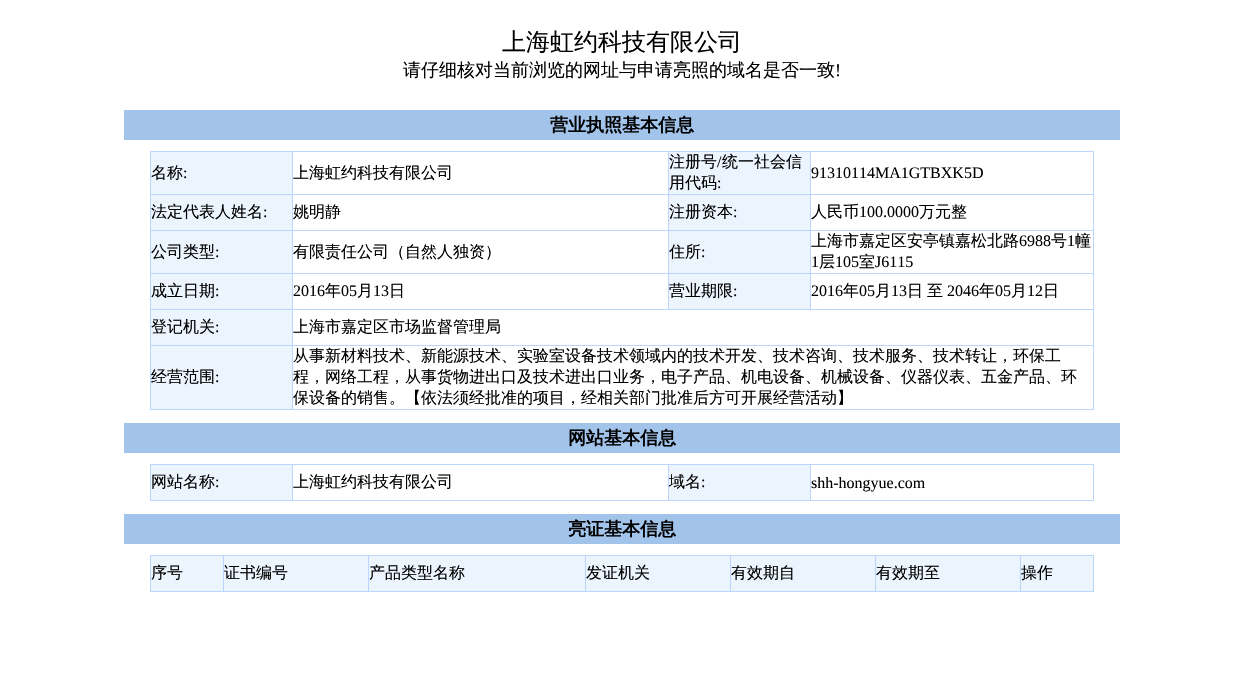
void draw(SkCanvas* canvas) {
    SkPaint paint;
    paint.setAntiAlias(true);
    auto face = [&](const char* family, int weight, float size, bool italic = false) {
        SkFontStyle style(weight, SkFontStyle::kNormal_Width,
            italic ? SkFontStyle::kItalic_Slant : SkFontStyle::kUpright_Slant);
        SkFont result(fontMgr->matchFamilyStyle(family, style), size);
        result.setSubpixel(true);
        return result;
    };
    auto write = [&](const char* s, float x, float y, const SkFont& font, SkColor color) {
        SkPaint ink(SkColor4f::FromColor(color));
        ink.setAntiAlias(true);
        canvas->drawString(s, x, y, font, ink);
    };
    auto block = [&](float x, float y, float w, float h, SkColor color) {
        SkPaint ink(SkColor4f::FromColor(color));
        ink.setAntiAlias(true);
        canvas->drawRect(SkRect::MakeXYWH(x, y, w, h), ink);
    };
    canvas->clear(SK_ColorWHITE);
    auto kFont1 = face("WenQuanYi Zen Hei", 500, 24);
    write("上海虹约科技有限公司", 502, 50, kFont1, SK_ColorBLACK);
    auto kFont2 = face("WenQuanYi Zen Hei", 500, 18);
    write("请仔细核对当前浏览的网址与申请亮照的域名是否一致", 403, 76, kFont2, SK_ColorBLACK);
    auto kFont3 = face("Liberation Serif", 400, 18);
    write("!", 835, 76, kFont3, SK_ColorBLACK);
    block(124, 110, 996, 30, SkColorSetRGB(162, 196, 235));
    auto kFont4 = face("WenQuanYi Zen Hei", 700, 18);
    write("营业执照基本信息", 550, 131, kFont4, SK_ColorBLACK);
    block(150, 151, 944, 259, SkColorSetRGB(188, 213, 252));
    block(151, 152, 141, 42, SkColorSetRGB(236, 244, 254));
    auto kFont5 = face("WenQuanYi Zen Hei", 500, 16);
    write("名称", 151, 178, kFont5, SK_ColorBLACK);
    auto kFont6 = face("Liberation Serif", 400, 16);
    write(":", 183, 178, kFont6, SK_ColorBLACK);
    block(293, 152, 375, 42, SK_ColorWHITE);
    write("上海虹约科技有限公司", 293, 178, kFont5, SK_ColorBLACK);
    block(669, 152, 141, 42, SkColorSetRGB(236, 244, 254));
    write("注册号", 669, 167, kFont5, SK_ColorBLACK);
    write("/", 717, 167, kFont6, SK_ColorBLACK);
    write("统一社会信", 722, 167, kFont5, SK_ColorBLACK);
    write("用代码", 669, 188, kFont5, SK_ColorBLACK);
    write(":", 717, 188, kFont6, SK_ColorBLACK);
    block(811, 152, 282, 42, SK_ColorWHITE);
    write("91310114MA1GTBXK5D", 811, 178, kFont6, SK_ColorBLACK);
    block(151, 195, 141, 35, SkColorSetRGB(236, 244, 254));
    write("法定代表人姓名", 151, 217, kFont5, SK_ColorBLACK);
    write(":", 263, 217, kFont6, SK_ColorBLACK);
    block(293, 195, 375, 35, SK_ColorWHITE);
    write("姚明静", 293, 217, kFont5, SK_ColorBLACK);
    block(669, 195, 141, 35, SkColorSetRGB(236, 244, 254));
    write("注册资本", 669, 217, kFont5, SK_ColorBLACK);
    write(":", 733, 217, kFont6, SK_ColorBLACK);
    block(811, 195, 282, 35, SK_ColorWHITE);
    write("人民币", 811, 217, kFont5, SK_ColorBLACK);
    write("100.0000", 859, 217, kFont6, SK_ColorBLACK);
    write("万元整", 919, 217, kFont5, SK_ColorBLACK);
    block(151, 231, 141, 42, SkColorSetRGB(236, 244, 254));
    write("公司类型", 151, 257, kFont5, SK_ColorBLACK);
    write(":", 215, 257, kFont6, SK_ColorBLACK);
    block(293, 231, 375, 42, SK_ColorWHITE);
    write("有限责任公司（自然人独资）", 293, 257, kFont5, SK_ColorBLACK);
    block(669, 231, 141, 42, SkColorSetRGB(236, 244, 254));
    write("住所", 669, 257, kFont5, SK_ColorBLACK);
    write(":", 701, 257, kFont6, SK_ColorBLACK);
    block(811, 231, 282, 42, SK_ColorWHITE);
    write("上海市嘉定区安亭镇嘉松北路", 811, 246, kFont5, SK_ColorBLACK);
    write("6988", 1019, 246, kFont6, SK_ColorBLACK);
    write("号", 1051, 246, kFont5, SK_ColorBLACK);
    write("1", 1067, 246, kFont6, SK_ColorBLACK);
    write("幢", 1075, 246, kFont5, SK_ColorBLACK);
    write("1", 811, 267, kFont6, SK_ColorBLACK);
    write("层", 819, 267, kFont5, SK_ColorBLACK);
    write("105", 835, 267, kFont6, SK_ColorBLACK);
    write("室", 859, 267, kFont5, SK_ColorBLACK);
    write("J6115", 875, 267, kFont6, SK_ColorBLACK);
    block(151, 274, 141, 35, SkColorSetRGB(236, 244, 254));
    write("成立日期", 151, 296, kFont5, SK_ColorBLACK);
    write(":", 215, 296, kFont6, SK_ColorBLACK);
    block(293, 274, 375, 35, SK_ColorWHITE);
    write("2016", 293, 296, kFont6, SK_ColorBLACK);
    write("年", 325, 296, kFont5, SK_ColorBLACK);
    write("05", 341, 296, kFont6, SK_ColorBLACK);
    write("月", 357, 296, kFont5, SK_ColorBLACK);
    write("13", 373, 296, kFont6, SK_ColorBLACK);
    write("日", 389, 296, kFont5, SK_ColorBLACK);
    block(669, 274, 141, 35, SkColorSetRGB(236, 244, 254));
    write("营业期限", 669, 296, kFont5, SK_ColorBLACK);
    write(":", 733, 296, kFont6, SK_ColorBLACK);
    block(811, 274, 282, 35, SK_ColorWHITE);
    write("2016", 811, 296, kFont6, SK_ColorBLACK);
    write("年", 843, 296, kFont5, SK_ColorBLACK);
    write("05", 859, 296, kFont6, SK_ColorBLACK);
    write("月", 875, 296, kFont5, SK_ColorBLACK);
    write("13", 891, 296, kFont6, SK_ColorBLACK);
    write("日", 907, 296, kFont5, SK_ColorBLACK);
    write("至", 927, 296, kFont5, SK_ColorBLACK);
    write("2046", 947, 296, kFont6, SK_ColorBLACK);
    write("年", 979, 296, kFont5, SK_ColorBLACK);
    write("05", 995, 296, kFont6, SK_ColorBLACK);
    write("月", 1011, 296, kFont5, SK_ColorBLACK);
    write("12", 1027, 296, kFont6, SK_ColorBLACK);
    write("日", 1043, 296, kFont5, SK_ColorBLACK);
    block(151, 310, 141, 35, SkColorSetRGB(236, 244, 254));
    write("登记机关", 151, 332, kFont5, SK_ColorBLACK);
    write(":", 215, 332, kFont6, SK_ColorBLACK);
    block(293, 310, 800, 35, SK_ColorWHITE);
    write("上海市嘉定区市场监督管理局", 293, 332, kFont5, SK_ColorBLACK);
    block(151, 346, 141, 63, SkColorSetRGB(236, 244, 254));
    write("经营范围", 151, 382, kFont5, SK_ColorBLACK);
    write(":", 215, 382, kFont6, SK_ColorBLACK);
    block(293, 346, 800, 63, SK_ColorWHITE);
    write("从事新材料技术、新能源技术、实验室设备技术领域内的技术开发、技术咨询、技术服务、技术转让，环保工", 293, 361, kFont5, SK_ColorBLACK);
    write("程，网络工程，从事货物进出口及技术进出口业务，电子产品、机电设备、机械设备、仪器仪表、五金产品、环", 293, 382, kFont5, SK_ColorBLACK);
    write("保设备的销售。【依法须经批准的项目，经相关部门批准后方可开展经营活动】", 293, 403, kFont5, SK_ColorBLACK);
    block(124, 423, 996, 30, SkColorSetRGB(162, 196, 235));
    write("网站基本信息", 568, 444, kFont4, SK_ColorBLACK);
    block(150, 464, 944, 37, SkColorSetRGB(188, 213, 252));
    block(151, 465, 141, 35, SkColorSetRGB(236, 244, 254));
    write("网站名称", 151, 487, kFont5, SK_ColorBLACK);
    write(":", 215, 487, kFont6, SK_ColorBLACK);
    block(293, 465, 375, 35, SK_ColorWHITE);
    write("上海虹约科技有限公司", 293, 487, kFont5, SK_ColorBLACK);
    block(669, 465, 141, 35, SkColorSetRGB(236, 244, 254));
    write("域名", 669, 487, kFont5, SK_ColorBLACK);
    write(":", 701, 487, kFont6, SK_ColorBLACK);
    block(811, 465, 282, 35, SK_ColorWHITE);
    write("shh-hongyue.com", 811, 488, kFont6, SK_ColorBLACK);
    block(124, 514, 996, 30, SkColorSetRGB(162, 196, 235));
    write("亮证基本信息", 568, 535, kFont4, SK_ColorBLACK);
    block(150, 555, 944, 37, SkColorSetRGB(188, 213, 252));
    block(151, 556, 72, 35, SkColorSetRGB(236, 244, 254));
    write("序号", 151, 578, kFont5, SK_ColorBLACK);
    block(224, 556, 144, 35, SkColorSetRGB(236, 244, 254));
    write("证书编号", 224, 578, kFont5, SK_ColorBLACK);
    block(369, 556, 216, 35, SkColorSetRGB(236, 244, 254));
    write("产品类型名称", 369, 578, kFont5, SK_ColorBLACK);
    block(586, 556, 144, 35, SkColorSetRGB(236, 244, 254));
    write("发证机关", 586, 578, kFont5, SK_ColorBLACK);
    block(731, 556, 144, 35, SkColorSetRGB(236, 244, 254));
    write("有效期自", 731, 578, kFont5, SK_ColorBLACK);
    block(876, 556, 144, 35, SkColorSetRGB(236, 244, 254));
    write("有效期至", 876, 578, kFont5, SK_ColorBLACK);
    block(1021, 556, 72, 35, SkColorSetRGB(236, 244, 254));
    write("操作", 1021, 578, kFont5, SK_ColorBLACK);
}
